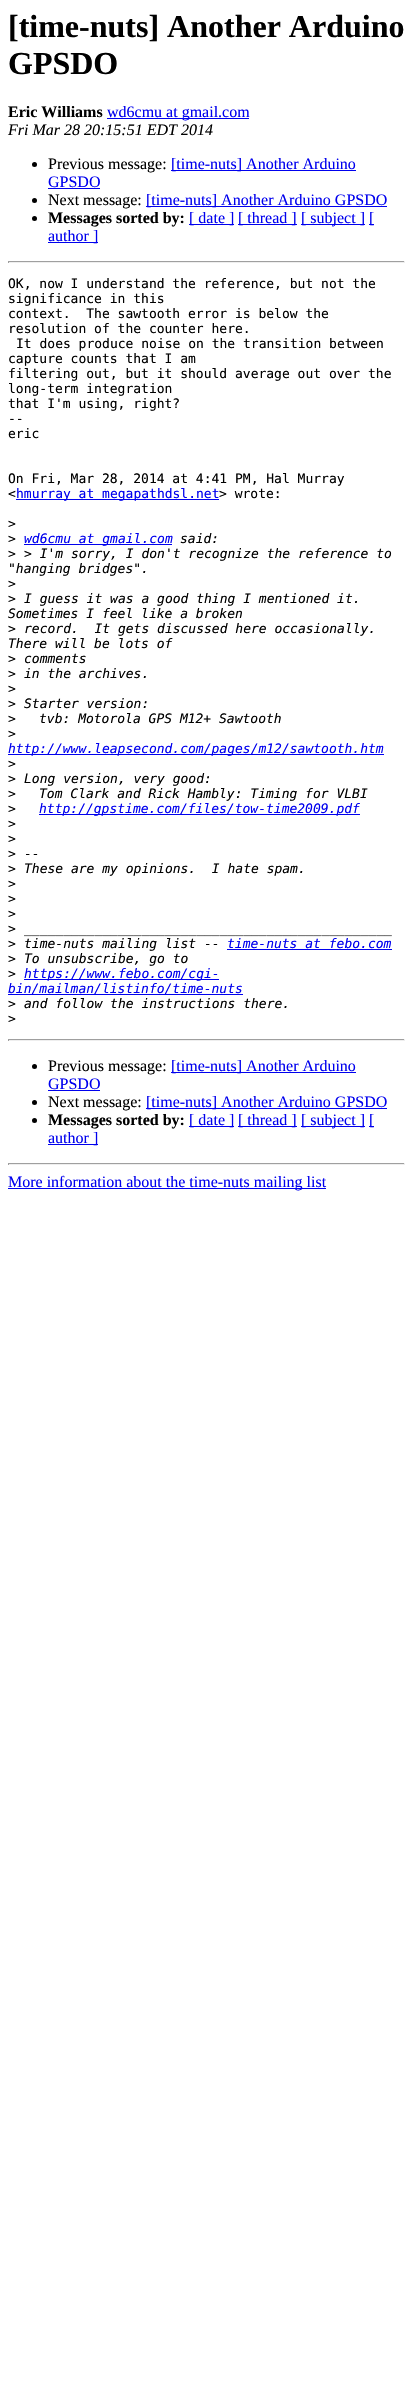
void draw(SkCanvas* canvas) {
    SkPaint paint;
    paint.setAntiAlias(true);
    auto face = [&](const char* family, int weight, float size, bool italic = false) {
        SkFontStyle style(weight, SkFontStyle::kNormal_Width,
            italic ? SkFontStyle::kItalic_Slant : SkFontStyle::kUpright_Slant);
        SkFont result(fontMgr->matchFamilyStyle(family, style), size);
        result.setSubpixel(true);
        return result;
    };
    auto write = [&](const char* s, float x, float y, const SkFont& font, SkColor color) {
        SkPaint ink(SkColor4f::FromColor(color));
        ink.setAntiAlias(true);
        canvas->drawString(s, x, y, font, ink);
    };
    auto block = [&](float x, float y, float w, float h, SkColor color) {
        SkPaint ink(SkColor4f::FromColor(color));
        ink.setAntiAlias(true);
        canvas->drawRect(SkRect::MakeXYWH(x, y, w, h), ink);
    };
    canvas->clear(SK_ColorWHITE);
    auto kFont1 = face("Liberation Serif", 700, 32);
    write("[time-nuts] Another Arduino", 8, 37, kFont1, SK_ColorBLACK);
    write("GPSDO", 8, 74, kFont1, SK_ColorBLACK);
    auto kFont2 = face("Liberation Serif", 700, 16);
    write("Eric Williams", 8, 117, kFont2, SK_ColorBLACK);
    block(107, 118, 142, 1, SkColorSetRGB(0, 0, 238));
    auto kFont3 = face("Liberation Serif", 400, 16);
    write("wd6cmu at gmail.com", 107, 117, kFont3, SkColorSetRGB(0, 0, 238));
    auto kFont4 = face("Liberation Serif", 400, 16, true);
    write("Fri Mar 28 20:15:51 EDT 2014", 8, 135, kFont4, SK_ColorBLACK);
    paint.setColor(SK_ColorBLACK);
    canvas->drawCircle(34.5f, 164.5f, 2.5f, paint);
    write("Previous message:", 48, 169, kFont3, SK_ColorBLACK);
    block(171, 170, 185, 1, SkColorSetRGB(0, 0, 238));
    write("[time-nuts] Another Arduino", 171, 169, kFont3, SkColorSetRGB(0, 0, 238));
    write("GPSDO", 48, 187, kFont3, SkColorSetRGB(0, 0, 238));
    block(48, 188, 52, 1, SkColorSetRGB(0, 0, 238));
    canvas->drawCircle(34.5f, 200.5f, 2.5f, paint);
    write("Next message:", 48, 205, kFont3, SK_ColorBLACK);
    block(146, 206, 241, 1, SkColorSetRGB(0, 0, 238));
    write("[time-nuts] Another Arduino GPSDO", 146, 205, kFont3, SkColorSetRGB(0, 0, 238));
    canvas->drawCircle(34.5f, 218.5f, 2.5f, paint);
    write("Messages sorted by:", 48, 223, kFont2, SK_ColorBLACK);
    block(189, 224, 45, 1, SkColorSetRGB(0, 0, 238));
    write("[ date ]", 189, 223, kFont3, SkColorSetRGB(0, 0, 238));
    block(238, 224, 59, 1, SkColorSetRGB(0, 0, 238));
    write("[ thread ]", 238, 223, kFont3, SkColorSetRGB(0, 0, 238));
    block(301, 224, 64, 1, SkColorSetRGB(0, 0, 238));
    write("[ subject ]", 301, 223, kFont3, SkColorSetRGB(0, 0, 238));
    block(369, 224, 5, 1, SkColorSetRGB(0, 0, 238));
    write("[", 369, 223, kFont3, SkColorSetRGB(0, 0, 238));
    block(48, 242, 50, 1, SkColorSetRGB(0, 0, 238));
    write("author ]", 48, 241, kFont3, SkColorSetRGB(0, 0, 238));
    block(8, 261, 397, 1, SkColorSetRGB(159, 159, 159));
    block(404, 261, 1, 2, SkColorSetRGB(238, 238, 238));
    block(8, 262, 397, 1, SkColorSetRGB(238, 238, 238));
    block(8, 261, 1, 2, SkColorSetRGB(159, 159, 159));
    auto kFont5 = face("DejaVu Sans Mono", 400, 13);
    write("OK, now I understand the reference, but not the", 8, 288, kFont5, SK_ColorBLACK);
    write("significance in this", 8, 303, kFont5, SK_ColorBLACK);
    write("context.  The sawtooth error is below the", 8, 318, kFont5, SK_ColorBLACK);
    write("resolution of the counter here.", 8, 333, kFont5, SK_ColorBLACK);
    write("It does produce noise on the transition between", 16, 348, kFont5, SK_ColorBLACK);
    write("capture counts that I am", 8, 363, kFont5, SK_ColorBLACK);
    write("filtering out, but it should average out over the", 8, 378, kFont5, SK_ColorBLACK);
    write("long-term integration", 8, 393, kFont5, SK_ColorBLACK);
    write("that I'm using, right?", 8, 408, kFont5, SK_ColorBLACK);
    write("--", 8, 423, kFont5, SK_ColorBLACK);
    write("eric", 8, 438, kFont5, SK_ColorBLACK);
    write("On Fri, Mar 28, 2014 at 4:41 PM, Hal Murray", 8, 483, kFont5, SK_ColorBLACK);
    write("<", 8, 498, kFont5, SK_ColorBLACK);
    block(16, 499, 203, 1, SkColorSetRGB(0, 0, 238));
    write("hmurray at megapathdsl.net", 16, 498, kFont5, SkColorSetRGB(0, 0, 238));
    write("> wrote:", 219, 498, kFont5, SK_ColorBLACK);
    write(">", 8, 528, kFont5, SK_ColorBLACK);
    write(">", 8, 543, kFont5, SK_ColorBLACK);
    block(24, 544, 148, 1, SkColorSetRGB(0, 0, 238));
    auto kFont6 = face("DejaVu Sans Mono", 400, 13, true);
    write("wd6cmu at gmail.com", 24, 543, kFont6, SkColorSetRGB(0, 0, 238));
    write("said:", 180, 543, kFont6, SK_ColorBLACK);
    write(">", 8, 558, kFont5, SK_ColorBLACK);
    write("> I'm sorry, I don't recognize the reference to", 24, 558, kFont6, SK_ColorBLACK);
    write("\"hanging bridges\".", 8, 573, kFont6, SK_ColorBLACK);
    write(">", 8, 588, kFont5, SK_ColorBLACK);
    write(">", 8, 603, kFont5, SK_ColorBLACK);
    write("I guess it was a good thing I mentioned it.", 24, 603, kFont6, SK_ColorBLACK);
    write("Sometimes I feel like a broken", 8, 618, kFont6, SK_ColorBLACK);
    write(">", 8, 633, kFont5, SK_ColorBLACK);
    write("record.  It gets discussed here occasionally.", 24, 633, kFont6, SK_ColorBLACK);
    write("There will be lots of", 8, 648, kFont6, SK_ColorBLACK);
    write(">", 8, 663, kFont5, SK_ColorBLACK);
    write("comments", 24, 663, kFont6, SK_ColorBLACK);
    write(">", 8, 678, kFont5, SK_ColorBLACK);
    write("in the archives.", 24, 678, kFont6, SK_ColorBLACK);
    write(">", 8, 693, kFont5, SK_ColorBLACK);
    write(">", 8, 708, kFont5, SK_ColorBLACK);
    write("Starter version:", 24, 708, kFont6, SK_ColorBLACK);
    write(">", 8, 723, kFont5, SK_ColorBLACK);
    write("tvb: Motorola GPS M12+ Sawtooth", 39, 723, kFont6, SK_ColorBLACK);
    write(">", 8, 738, kFont5, SK_ColorBLACK);
    block(8, 754, 376, 1, SkColorSetRGB(0, 0, 238));
    write("http://www.leapsecond.com/pages/m12/sawtooth.htm", 8, 753, kFont6, SkColorSetRGB(0, 0, 238));
    write(">", 8, 768, kFont5, SK_ColorBLACK);
    write(">", 8, 783, kFont5, SK_ColorBLACK);
    write("Long version, very good:", 24, 783, kFont6, SK_ColorBLACK);
    write(">", 8, 798, kFont5, SK_ColorBLACK);
    write("Tom Clark and Rick Hambly: Timing for VLBI", 39, 798, kFont6, SK_ColorBLACK);
    write(">", 8, 813, kFont5, SK_ColorBLACK);
    block(39, 814, 321, 1, SkColorSetRGB(0, 0, 238));
    write("http://gpstime.com/files/tow-time2009.pdf", 39, 813, kFont6, SkColorSetRGB(0, 0, 238));
    write(">", 8, 828, kFont5, SK_ColorBLACK);
    write(">", 8, 843, kFont5, SK_ColorBLACK);
    write(">", 8, 858, kFont5, SK_ColorBLACK);
    write("--", 24, 858, kFont6, SK_ColorBLACK);
    write(">", 8, 873, kFont5, SK_ColorBLACK);
    write("These are my opinions.  I hate spam.", 24, 873, kFont6, SK_ColorBLACK);
    write(">", 8, 888, kFont5, SK_ColorBLACK);
    write(">", 8, 903, kFont5, SK_ColorBLACK);
    write(">", 8, 918, kFont5, SK_ColorBLACK);
    write(">", 8, 933, kFont5, SK_ColorBLACK);
    write("_______________________________________________", 24, 933, kFont6, SK_ColorBLACK);
    write(">", 8, 948, kFont5, SK_ColorBLACK);
    write("time-nuts mailing list --", 24, 948, kFont6, SK_ColorBLACK);
    write("time-nuts at febo.com", 227, 948, kFont6, SkColorSetRGB(0, 0, 238));
    block(227, 949, 165, 1, SkColorSetRGB(0, 0, 238));
    write(">", 8, 963, kFont5, SK_ColorBLACK);
    write("To unsubscribe, go to", 24, 963, kFont6, SK_ColorBLACK);
    write(">", 8, 978, kFont5, SK_ColorBLACK);
    block(24, 979, 195, 1, SkColorSetRGB(0, 0, 238));
    write("https://www.febo.com/cgi-", 24, 978, kFont6, SkColorSetRGB(0, 0, 238));
    block(8, 994, 235, 1, SkColorSetRGB(0, 0, 238));
    write("bin/mailman/listinfo/time-nuts", 8, 993, kFont6, SkColorSetRGB(0, 0, 238));
    write(">", 8, 1008, kFont5, SK_ColorBLACK);
    write("and follow the instructions there.", 24, 1008, kFont6, SK_ColorBLACK);
    write(">", 8, 1023, kFont5, SK_ColorBLACK);
    block(8, 1039, 397, 1, SkColorSetRGB(159, 159, 159));
    block(404, 1039, 1, 2, SkColorSetRGB(238, 238, 238));
    block(8, 1040, 397, 1, SkColorSetRGB(238, 238, 238));
    block(8, 1039, 1, 2, SkColorSetRGB(159, 159, 159));
    canvas->drawCircle(34.5f, 1066.5f, 2.5f, paint);
    write("Previous message:", 48, 1071, kFont3, SK_ColorBLACK);
    block(171, 1072, 185, 1, SkColorSetRGB(0, 0, 238));
    write("[time-nuts] Another Arduino", 171, 1071, kFont3, SkColorSetRGB(0, 0, 238));
    write("GPSDO", 48, 1089, kFont3, SkColorSetRGB(0, 0, 238));
    block(48, 1090, 52, 1, SkColorSetRGB(0, 0, 238));
    canvas->drawCircle(34.5f, 1102.5f, 2.5f, paint);
    write("Next message:", 48, 1107, kFont3, SK_ColorBLACK);
    block(146, 1108, 241, 1, SkColorSetRGB(0, 0, 238));
    write("[time-nuts] Another Arduino GPSDO", 146, 1107, kFont3, SkColorSetRGB(0, 0, 238));
    canvas->drawCircle(34.5f, 1120.5f, 2.5f, paint);
    write("Messages sorted by:", 48, 1125, kFont2, SK_ColorBLACK);
    block(189, 1126, 45, 1, SkColorSetRGB(0, 0, 238));
    write("[ date ]", 189, 1125, kFont3, SkColorSetRGB(0, 0, 238));
    block(238, 1126, 59, 1, SkColorSetRGB(0, 0, 238));
    write("[ thread ]", 238, 1125, kFont3, SkColorSetRGB(0, 0, 238));
    block(301, 1126, 64, 1, SkColorSetRGB(0, 0, 238));
    write("[ subject ]", 301, 1125, kFont3, SkColorSetRGB(0, 0, 238));
    block(369, 1126, 5, 1, SkColorSetRGB(0, 0, 238));
    write("[", 369, 1125, kFont3, SkColorSetRGB(0, 0, 238));
    block(48, 1144, 50, 1, SkColorSetRGB(0, 0, 238));
    write("author ]", 48, 1143, kFont3, SkColorSetRGB(0, 0, 238));
    block(8, 1163, 397, 1, SkColorSetRGB(159, 159, 159));
    block(404, 1163, 1, 2, SkColorSetRGB(238, 238, 238));
    block(8, 1164, 397, 1, SkColorSetRGB(238, 238, 238));
    block(8, 1163, 1, 2, SkColorSetRGB(159, 159, 159));
    block(8, 1188, 318, 1, SkColorSetRGB(0, 0, 238));
    write("More information about the time-nuts mailing list", 8, 1187, kFont3, SkColorSetRGB(0, 0, 238));
}
